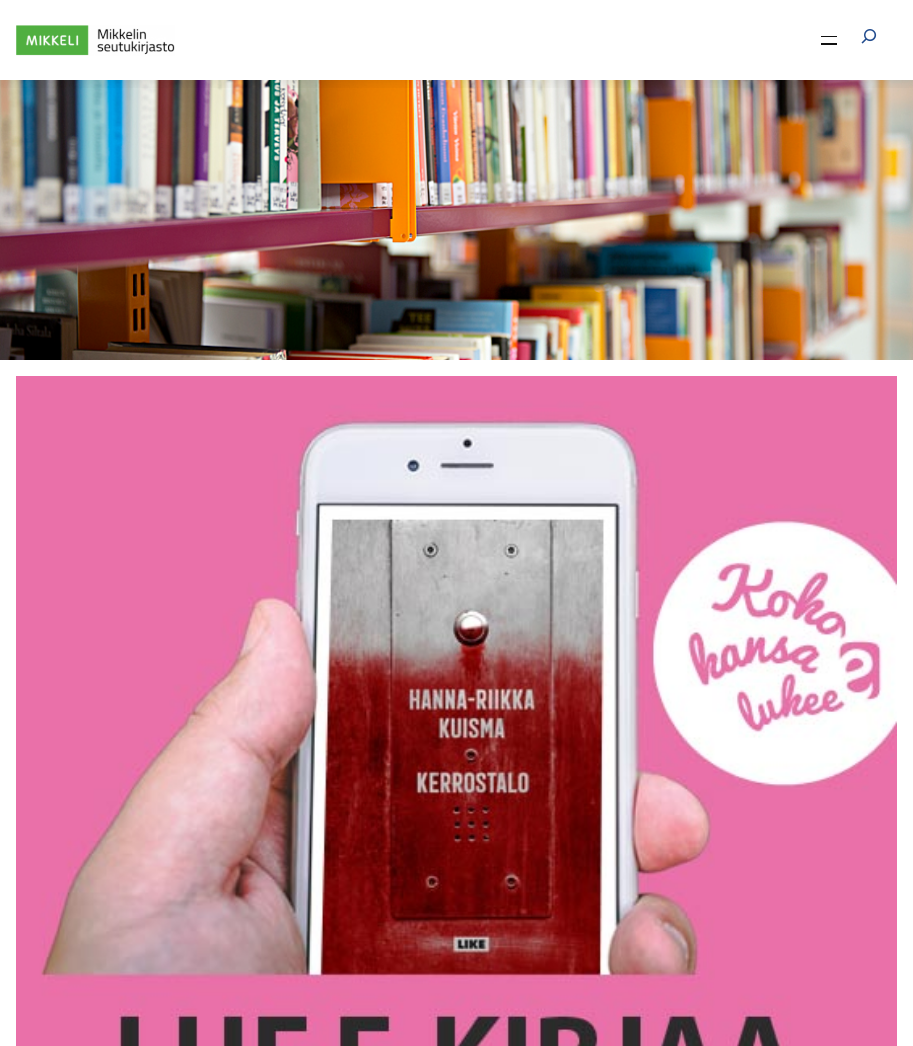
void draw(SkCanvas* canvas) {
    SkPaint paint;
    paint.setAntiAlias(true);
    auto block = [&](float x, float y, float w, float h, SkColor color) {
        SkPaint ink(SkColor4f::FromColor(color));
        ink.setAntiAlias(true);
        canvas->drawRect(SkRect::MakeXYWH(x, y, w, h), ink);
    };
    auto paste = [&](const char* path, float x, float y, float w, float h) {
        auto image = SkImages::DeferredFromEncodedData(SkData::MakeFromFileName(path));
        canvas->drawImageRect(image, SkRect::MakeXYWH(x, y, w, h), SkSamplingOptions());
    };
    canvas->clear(SK_ColorWHITE);
    paste("pic3.png", 0, 80, 913, 280);
    canvas->save();
    canvas->clipRect(SkRect::MakeXYWH(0, 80, 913, 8));
    paint.setColor(SkColorSetARGB(26, 0, 0, 0));
    paint.setMaskFilter(SkMaskFilter::MakeBlur(kNormal_SkBlurStyle, 8));
    canvas->drawRect(SkRect::MakeXYWH(0, 1, 913, 80), paint);
    paint.setMaskFilter(nullptr);
    canvas->restore();
    paste("pic1.png", 16, 25, 159, 31);
    block(821, 36, 16, 1, SkColorSetRGB(17, 17, 17));
    block(821, 43, 16, 2, SkColorSetRGB(17, 17, 17));
    paste("pic2.png", 861, 29, 16, 15);
    paste("pic4.png", 16, 376, 881, 670);
}
